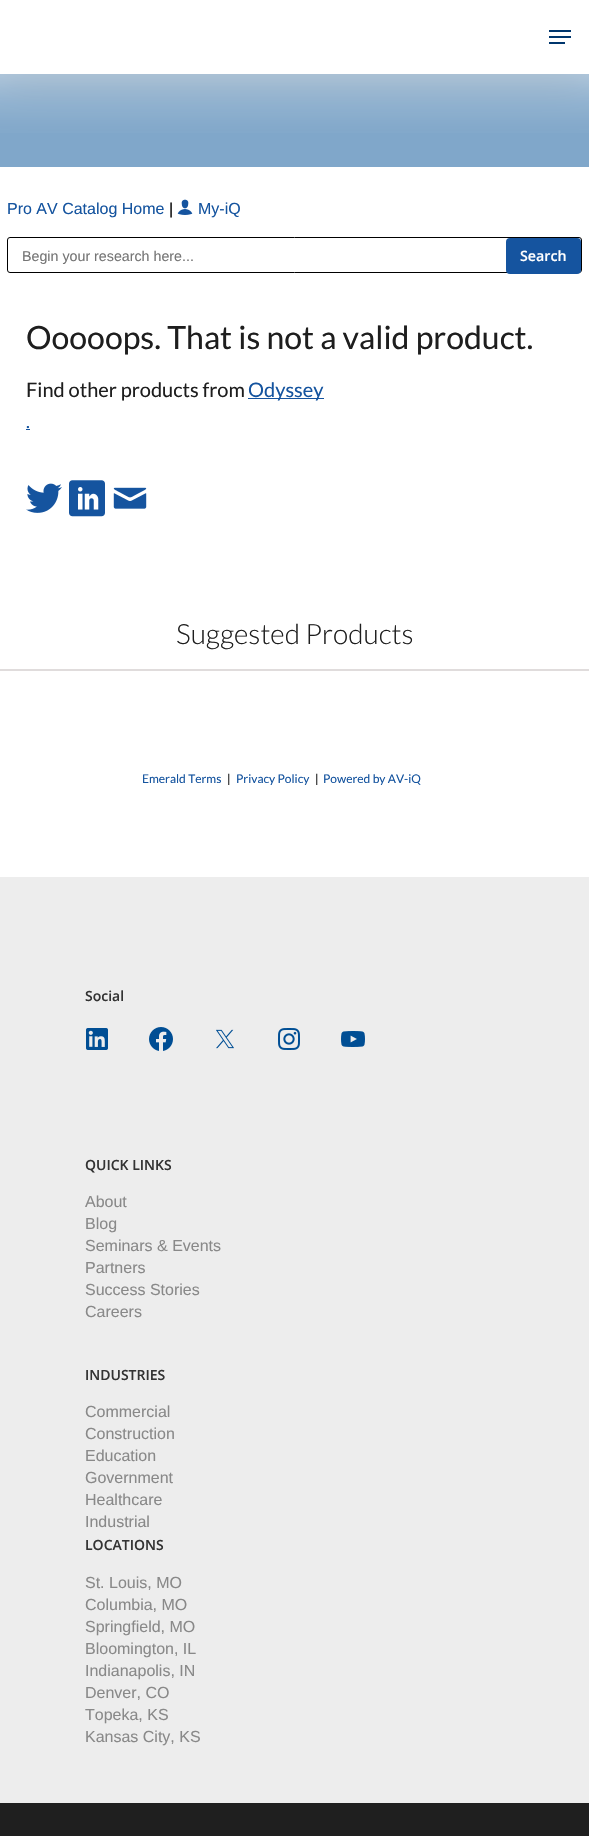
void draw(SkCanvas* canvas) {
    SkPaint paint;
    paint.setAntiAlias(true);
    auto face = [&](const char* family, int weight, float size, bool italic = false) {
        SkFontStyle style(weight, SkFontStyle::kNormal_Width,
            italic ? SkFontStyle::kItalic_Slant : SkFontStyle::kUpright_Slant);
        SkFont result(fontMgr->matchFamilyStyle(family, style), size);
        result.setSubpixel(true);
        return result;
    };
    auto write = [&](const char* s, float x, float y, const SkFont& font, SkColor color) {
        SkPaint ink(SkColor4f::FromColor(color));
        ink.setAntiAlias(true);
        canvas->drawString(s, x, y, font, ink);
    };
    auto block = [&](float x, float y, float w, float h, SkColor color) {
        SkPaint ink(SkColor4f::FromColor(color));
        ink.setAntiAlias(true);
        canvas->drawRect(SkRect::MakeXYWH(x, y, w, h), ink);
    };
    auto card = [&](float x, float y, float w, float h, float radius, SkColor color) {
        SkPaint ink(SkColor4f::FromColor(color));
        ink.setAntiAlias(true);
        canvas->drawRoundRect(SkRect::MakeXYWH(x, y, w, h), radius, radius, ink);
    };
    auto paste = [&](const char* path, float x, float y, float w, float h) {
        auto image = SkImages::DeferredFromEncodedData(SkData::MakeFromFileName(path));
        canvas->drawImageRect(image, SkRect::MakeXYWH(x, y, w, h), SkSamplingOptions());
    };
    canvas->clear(SK_ColorWHITE);
    block(0, 74, 589, 93, SkColorSetRGB(128, 167, 202));
    paint.setColor(SkColorSetARGB(38, 0, 0, 0));
    paint.setMaskFilter(SkMaskFilter::MakeBlur(kNormal_SkBlurStyle, 22.5f));
    canvas->drawRect(SkRect::MakeXYWH(0, 3, 589, 74), paint);
    paint.setMaskFilter(nullptr);
    block(0, 0, 589, 74, SK_ColorWHITE);
    block(549, 30, 22, 2, SkColorSetRGB(0, 54, 109));
    block(549, 42, 16, 2, SkColorSetRGB(0, 54, 109));
    block(549, 36, 22, 2, SkColorSetRGB(0, 54, 109));
    {
        const SkColor colors[] = {SkColorSetARGB(191, 255, 255, 255), SkColorSetARGB(189, 255, 255, 255), SkColorSetARGB(181, 255, 255, 255), SkColorSetARGB(171, 255, 255, 255), SkColorSetARGB(158, 255, 255, 255), SkColorSetARGB(143, 255, 255, 255), SkColorSetARGB(125, 255, 255, 255), SkColorSetARGB(105, 255, 255, 255), SkColorSetARGB(87, 255, 255, 255), SkColorSetARGB(66, 255, 255, 255), SkColorSetARGB(48, 255, 255, 255), SkColorSetARGB(33, 255, 255, 255), SkColorSetARGB(20, 255, 255, 255), SkColorSetARGB(10, 255, 255, 255), SkColorSetARGB(3, 255, 255, 255), SkColorSetARGB(0, 255, 255, 255)};
        const float stops[] = {0, 0.08f, 0.15f, 0.23f, 0.29f, 0.35f, 0.41f, 0.47f, 0.53f, 0.59f, 0.65f, 0.71f, 0.78f, 0.84f, 0.92f, 1};
        const SkPoint ends[] = {{295, 0}, {295, 150}};
        paint.setShader(SkGradientShader::MakeLinear(ends, colors, stops, 16, SkTileMode::kClamp));
        paint.setAlpha(255);
    }
    canvas->drawRect(SkRect::MakeXYWH(0, 74, 589, 59), paint);
    auto kFont1 = face("Liberation Sans", 400, 16);
    write("Pro AV Catalog Home", 7, 214, kFont1, SkColorSetRGB(21, 84, 159));
    write("|", 169, 214, kFont1, SK_ColorBLACK);
    paste("pic1.png", 177, 199, 16, 16);
    write("My-iQ", 198, 214, kFont1, SkColorSetRGB(21, 84, 159));
    paint.setStyle(SkPaint::kStroke_Style);
    paint.setStrokeWidth(1);
    paint.setShader(nullptr);
    paint.setColor(SK_ColorBLACK);
    canvas->drawRoundRect(SkRect::MakeXYWH(7.5f, 237.5f, 574, 35), 2.5f, 2.5f, paint);
    auto kFont2 = face("Liberation Sans", 400, 14.25f);
    write("Begin your research here...", 22, 261, kFont2, SkColorSetRGB(117, 117, 117));
    card(506, 238, 75, 36, 4, SkColorSetRGB(21, 84, 159));
    auto kFont3 = face("Open Sans", 600, 14.25f);
    write("Search", 520, 261, kFont3, SK_ColorWHITE);
    auto kFont4 = face("Lato", 400, 32);
    write("Ooooops. That is not a valid product.", 26, 349, kFont4, SkColorSetRGB(30, 30, 30));
    auto kFont5 = face("Lato", 400, 20);
    write("Find other products from", 26, 397, kFont5, SkColorSetRGB(30, 30, 30));
    block(248, 398, 76, 1, SkColorSetRGB(21, 84, 159));
    write("Odyssey", 248, 397, kFont5, SkColorSetRGB(21, 84, 159));
    auto kFont6 = face("Lato", 400, 18);
    write(".", 26, 428, kFont6, SkColorSetRGB(21, 84, 159));
    block(26, 429, 4, 1, SkColorSetRGB(21, 84, 159));
    paste("pic2.png", 26, 483, 36, 30);
    paste("pic3.png", 69, 480, 36, 37);
    paste("pic4.png", 113, 487, 34, 22);
    block(0, 669, 589, 2, SkColorSetRGB(224, 220, 220));
    auto kFont7 = face("Lato", 300, 28);
    write("Suggested Products", 176, 644, kFont7, SkColorSetRGB(30, 30, 30));
    auto kFont8 = face("Lato", 400, 12);
    write("Emerald Terms", 142, 783, kFont8, SkColorSetRGB(21, 84, 159));
    write("|", 227, 783, kFont8, SK_ColorBLACK);
    write("Privacy Policy", 236, 783, kFont8, SkColorSetRGB(21, 84, 159));
    write("|", 315, 783, kFont8, SK_ColorBLACK);
    write("Powered by AV-iQ", 323, 783, kFont8, SkColorSetRGB(21, 84, 159));
    block(0, 877, 589, 926, SkColorSetRGB(237, 237, 237));
    auto kFont9 = face("Open Sans", 600, 14);
    write("Social", 85, 1001, kFont9, SkColorSetRGB(51, 51, 51));
    paste("pic5.png", 86, 1028, 22, 22);
    paste("pic6.png", 149, 1027, 24, 24);
    paste("pic7.png", 216, 1029, 18, 20);
    paste("pic8.png", 278, 1028, 22, 22);
    paste("pic9.png", 341, 1031, 24, 16);
    write("QUICK LINKS", 85, 1170, kFont9, SkColorSetRGB(51, 51, 51));
    write("About", 85, 1207, kFont1, SkColorSetRGB(137, 137, 137));
    write("Blog", 85, 1229, kFont1, SkColorSetRGB(137, 137, 137));
    write("Seminars & Events", 85, 1251, kFont1, SkColorSetRGB(137, 137, 137));
    write("Partners", 85, 1273, kFont1, SkColorSetRGB(137, 137, 137));
    write("Success Stories", 85, 1295, kFont1, SkColorSetRGB(137, 137, 137));
    write("Careers", 85, 1317, kFont1, SkColorSetRGB(137, 137, 137));
    write("INDUSTRIES", 85, 1380, kFont9, SkColorSetRGB(51, 51, 51));
    write("Commercial", 85, 1417, kFont1, SkColorSetRGB(137, 137, 137));
    write("Construction", 85, 1439, kFont1, SkColorSetRGB(137, 137, 137));
    write("Education", 85, 1461, kFont1, SkColorSetRGB(137, 137, 137));
    write("Government", 85, 1483, kFont1, SkColorSetRGB(137, 137, 137));
    write("Healthcare", 85, 1505, kFont1, SkColorSetRGB(137, 137, 137));
    write("Industrial", 85, 1527, kFont1, SkColorSetRGB(137, 137, 137));
    write("LOCATIONS", 85, 1550, kFont9, SkColorSetRGB(51, 51, 51));
    write("St. Louis, MO", 85, 1588, kFont1, SkColorSetRGB(137, 137, 137));
    write("Columbia, MO", 85, 1610, kFont1, SkColorSetRGB(137, 137, 137));
    write("Springfield, MO", 85, 1632, kFont1, SkColorSetRGB(137, 137, 137));
    write("Bloomington, IL", 85, 1654, kFont1, SkColorSetRGB(137, 137, 137));
    write("Indianapolis, IN", 85, 1676, kFont1, SkColorSetRGB(137, 137, 137));
    write("Denver, CO", 85, 1698, kFont1, SkColorSetRGB(137, 137, 137));
    write("Topeka, KS", 85, 1720, kFont1, SkColorSetRGB(137, 137, 137));
    write("Kansas City, KS", 85, 1742, kFont1, SkColorSetRGB(137, 137, 137));
    block(0, 1803, 589, 33, SkColorSetRGB(31, 31, 31));
}
